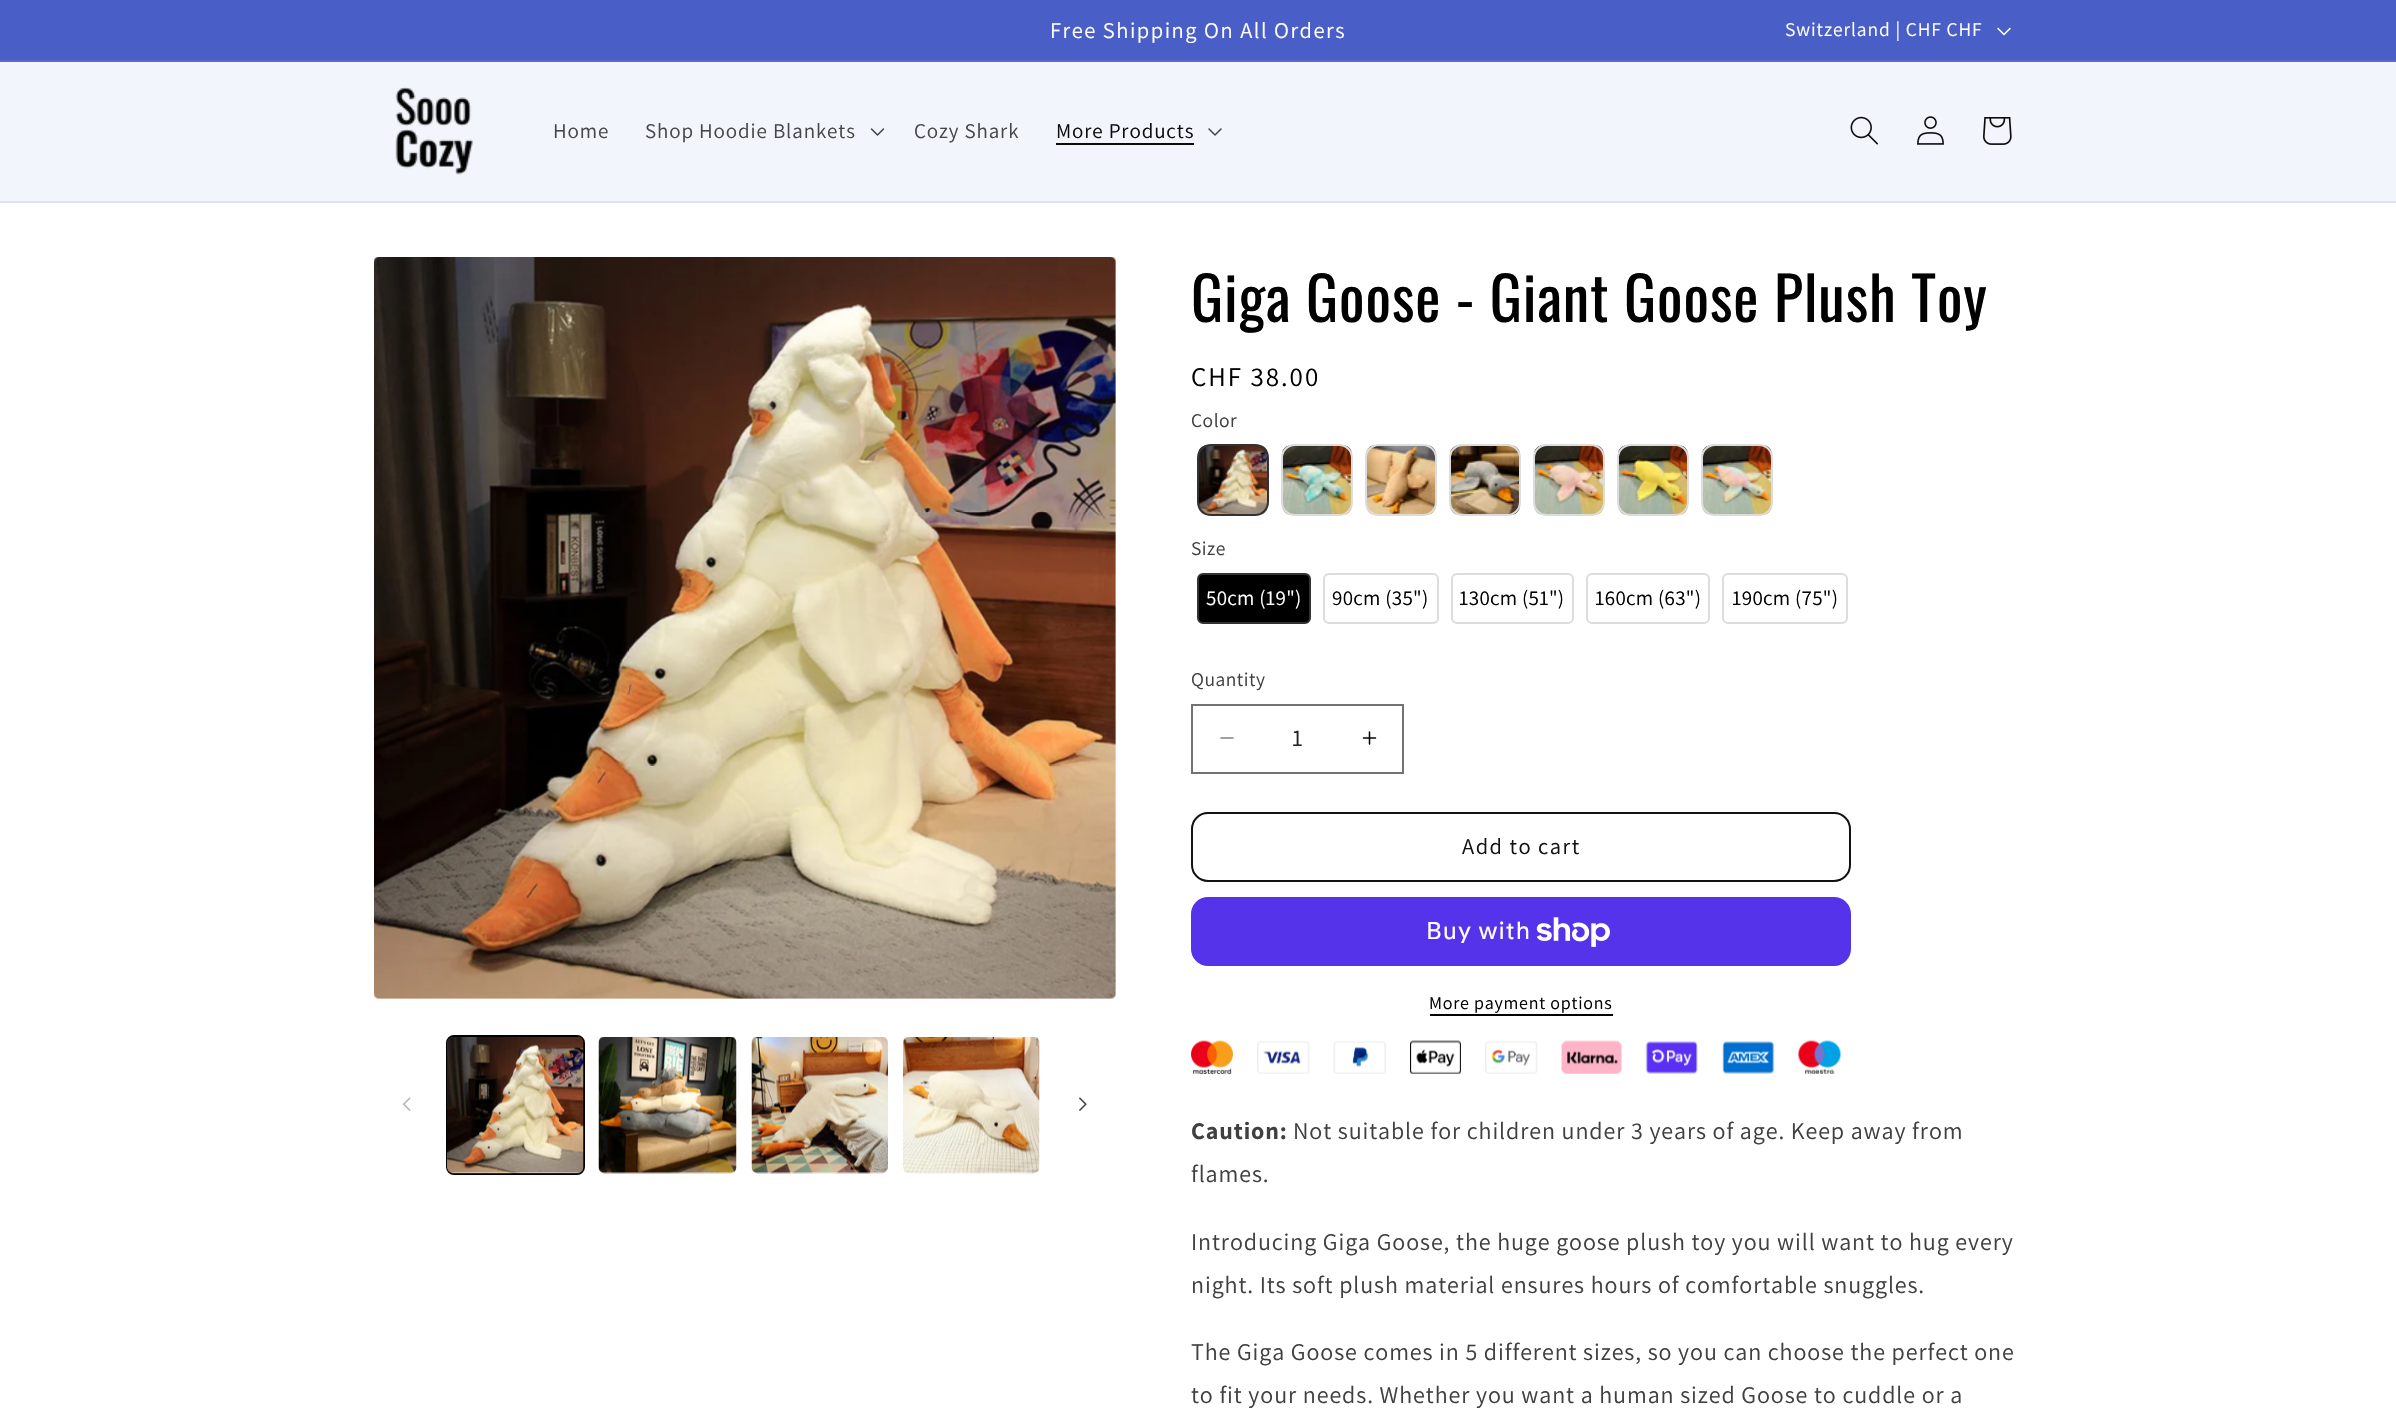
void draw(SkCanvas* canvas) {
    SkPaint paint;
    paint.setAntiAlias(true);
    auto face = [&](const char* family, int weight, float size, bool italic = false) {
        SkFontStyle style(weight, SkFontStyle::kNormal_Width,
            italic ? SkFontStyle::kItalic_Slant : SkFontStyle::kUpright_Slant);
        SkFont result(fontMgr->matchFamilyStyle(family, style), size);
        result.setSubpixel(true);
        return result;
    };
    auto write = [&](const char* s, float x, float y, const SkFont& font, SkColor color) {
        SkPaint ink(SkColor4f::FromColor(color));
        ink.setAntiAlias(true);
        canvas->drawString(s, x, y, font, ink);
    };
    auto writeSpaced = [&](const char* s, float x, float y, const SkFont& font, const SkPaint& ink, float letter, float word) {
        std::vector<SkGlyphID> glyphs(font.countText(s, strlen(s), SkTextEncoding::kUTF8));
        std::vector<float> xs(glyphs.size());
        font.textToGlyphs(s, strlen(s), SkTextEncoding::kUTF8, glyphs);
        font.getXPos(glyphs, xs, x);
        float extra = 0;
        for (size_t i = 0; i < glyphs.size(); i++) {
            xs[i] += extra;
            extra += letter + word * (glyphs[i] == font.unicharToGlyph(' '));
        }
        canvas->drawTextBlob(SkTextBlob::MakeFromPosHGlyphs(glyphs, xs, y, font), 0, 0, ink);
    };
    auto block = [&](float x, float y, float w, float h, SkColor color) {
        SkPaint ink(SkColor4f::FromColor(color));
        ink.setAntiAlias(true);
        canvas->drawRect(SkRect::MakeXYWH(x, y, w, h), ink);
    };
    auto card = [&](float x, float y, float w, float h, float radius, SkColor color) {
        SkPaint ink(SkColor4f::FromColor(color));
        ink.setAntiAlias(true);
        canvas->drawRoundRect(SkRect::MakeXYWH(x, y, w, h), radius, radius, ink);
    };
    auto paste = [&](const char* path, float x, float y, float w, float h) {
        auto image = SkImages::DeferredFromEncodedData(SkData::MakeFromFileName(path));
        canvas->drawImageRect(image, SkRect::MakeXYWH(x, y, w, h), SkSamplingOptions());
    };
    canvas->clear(SK_ColorWHITE);
    block(0, 0, 2396, 60, SkColorSetRGB(73, 94, 199));
    block(0, 60, 2396, 2, SkColorSetRGB(88, 107, 203));
    auto kFont1 = face("Assistant", 400, 22.5f);
    paint.setColor(SK_ColorWHITE);
    writeSpaced("Free Shipping On All Orders", 1050, 38, kFont1, paint, 1.5f, 0);
    auto kFont2 = face("Assistant", 400, 19.5f);
    writeSpaced("Switzerland | CHF CHF", 1785, 36, kFont2, paint, 0.9f, 0);
    paste("pic1.png", 1997, 27, 14, 9);
    block(0, 62, 2396, 139, SkColorSetRGB(242, 245, 252));
    block(0, 201, 2396, 2, SkColorSetRGB(224, 226, 233));
    paste("pic2.png", 395, 87, 78, 88);
    auto kFont3 = face("Assistant", 400, 21);
    paint.setColor(SkColorSetRGB(69, 70, 71));
    writeSpaced("Home", 553, 138, kFont3, paint, 0.9f, 0);
    writeSpaced("Shop Hoodie Blankets", 645, 138, kFont3, paint, 0.9f, 0);
    paste("pic3.png", 870, 128, 15, 8);
    writeSpaced("Cozy Shark", 914, 138, kFont3, paint, 0.9f, 0);
    paint.setColor(SkColorSetRGB(11, 11, 11));
    writeSpaced("More Products", 1056, 138, kFont3, paint, 0.9f, 0);
    block(1056, 143, 138, 2, SkColorSetRGB(11, 11, 11));
    paste("pic4.png", 1208, 128, 14, 8);
    paste("pic5.png", 1850, 116, 28, 29);
    paste("pic6.png", 1917, 116, 27, 29);
    paste("pic7.png", 1983, 117, 29, 28);
    paste("pic8.png", 374, 257, 742, 742);
    paste("pic9.png", 403, 1097, 8, 14);
    paint.setStyle(SkPaint::kStroke_Style);
    paint.setStrokeWidth(2);
    paint.setColor(SK_ColorBLACK);
    canvas->drawRoundRect(SkRect::MakeXYWH(447, 1036, 137, 138), 7, 7, paint);
    paste("pic10.png", 447, 1037, 137, 137);
    paste("pic11.png", 598, 1037, 139, 137);
    paste("pic12.png", 751, 1037, 137, 137);
    paste("pic13.png", 903, 1037, 137, 137);
    paste("pic14.png", 1079, 1097, 8, 14);
    auto kFont4 = face("Oswald", 400, 60);
    paint.setStyle(SkPaint::kFill_Style);
    writeSpaced("Giga Goose - Giant Goose Plush Toy", 1191, 322, kFont4, paint, 0.9f, 0);
    auto kFont5 = face("Assistant", 400, 27);
    writeSpaced("CHF 38.00", 1191, 386, kFont5, paint, 2, 0);
    paint.setColor(SkColorSetRGB(64, 64, 64));
    writeSpaced("Color", 1191, 427, kFont2, paint, 0.5f, 0);
    paste("pic15.png", 1198, 445, 70, 70);
    paint.setStyle(SkPaint::kStroke_Style);
    paint.setColor(SkColorSetRGB(50, 50, 50));
    canvas->drawRoundRect(SkRect::MakeXYWH(1198, 445, 70, 70), 13, 13, paint);
    paste("pic16.png", 1282, 445, 70, 70);
    paint.setColor(SkColorSetRGB(220, 220, 220));
    canvas->drawRoundRect(SkRect::MakeXYWH(1282, 445, 70, 70), 13, 13, paint);
    paste("pic17.png", 1366, 445, 70, 70);
    canvas->drawRoundRect(SkRect::MakeXYWH(1366, 445, 70, 70), 13, 13, paint);
    paste("pic18.png", 1450, 445, 70, 70);
    canvas->drawRoundRect(SkRect::MakeXYWH(1450, 445, 70, 70), 13, 13, paint);
    paste("pic19.png", 1534, 445, 70, 70);
    canvas->drawRoundRect(SkRect::MakeXYWH(1534, 445, 70, 70), 13, 13, paint);
    paste("pic20.png", 1618, 445, 70, 70);
    canvas->drawRoundRect(SkRect::MakeXYWH(1618, 445, 70, 70), 13, 13, paint);
    paste("pic21.png", 1702, 445, 70, 70);
    canvas->drawRoundRect(SkRect::MakeXYWH(1702, 445, 70, 70), 13, 13, paint);
    paint.setStyle(SkPaint::kFill_Style);
    paint.setColor(SkColorSetRGB(64, 64, 64));
    writeSpaced("Size", 1191, 555, kFont2, paint, 0.5f, 0);
    paint.setColor(SK_ColorBLACK);
    canvas->drawRoundRect(SkRect::MakeXYWH(1198, 574, 112, 49), 5, 5, paint);
    paint.setStyle(SkPaint::kStroke_Style);
    paint.setColor(SkColorSetRGB(50, 50, 50));
    canvas->drawRoundRect(SkRect::MakeXYWH(1198, 574, 112, 49), 5, 5, paint);
    paint.setStyle(SkPaint::kFill_Style);
    paint.setColor(SK_ColorWHITE);
    writeSpaced("50cm (19\")", 1206, 605, kFont3, paint, 0.3f, 0);
    paint.setStyle(SkPaint::kStroke_Style);
    paint.setColor(SkColorSetRGB(220, 220, 220));
    canvas->drawRoundRect(SkRect::MakeXYWH(1324, 574, 114, 49), 5, 5, paint);
    paint.setStyle(SkPaint::kFill_Style);
    paint.setColor(SK_ColorBLACK);
    writeSpaced("90cm (35\")", 1332, 605, kFont3, paint, 0.3f, 0);
    paint.setStyle(SkPaint::kStroke_Style);
    paint.setColor(SkColorSetRGB(220, 220, 220));
    canvas->drawRoundRect(SkRect::MakeXYWH(1452, 574, 121, 49), 5, 5, paint);
    paint.setStyle(SkPaint::kFill_Style);
    paint.setColor(SK_ColorBLACK);
    writeSpaced("130cm (51\")", 1459, 605, kFont3, paint, 0.3f, 0);
    paint.setStyle(SkPaint::kStroke_Style);
    paint.setColor(SkColorSetRGB(220, 220, 220));
    canvas->drawRoundRect(SkRect::MakeXYWH(1587, 574, 122, 49), 5, 5, paint);
    paint.setStyle(SkPaint::kFill_Style);
    paint.setColor(SK_ColorBLACK);
    writeSpaced("160cm (63\")", 1595, 605, kFont3, paint, 0.3f, 0);
    paint.setStyle(SkPaint::kStroke_Style);
    paint.setColor(SkColorSetRGB(220, 220, 220));
    canvas->drawRoundRect(SkRect::MakeXYWH(1723, 574, 124, 49), 5, 5, paint);
    paint.setStyle(SkPaint::kFill_Style);
    paint.setColor(SK_ColorBLACK);
    writeSpaced("190cm (75\")", 1732, 605, kFont3, paint, 0.3f, 0);
    paint.setColor(SkColorSetRGB(64, 64, 64));
    writeSpaced("Quantity", 1191, 686, kFont2, paint, 0.5f, 0);
    paste("pic22.png", 1220, 737, 14, 2);
    paste("pic23.png", 1362, 731, 15, 14);
    paint.setStyle(SkPaint::kStroke_Style);
    paint.setColor(SkColorSetRGB(115, 115, 115));
    canvas->drawRect(SkRect::MakeXYWH(1192, 705, 211, 68), paint);
    auto kFont6 = face("Assistant", 400, 24);
    write("1", 1292, 746, kFont6, SkColorSetRGB(38, 38, 38));
    paint.setColor(SkColorSetRGB(18, 18, 18));
    canvas->drawRoundRect(SkRect::MakeXYWH(1192, 813, 658, 68), 16, 16, paint);
    paint.setStyle(SkPaint::kFill_Style);
    writeSpaced("Add to cart", 1462, 854, kFont1, paint, 1.5f, 0);
    card(1191, 897, 660, 69, 17, SkColorSetRGB(84, 51, 235));
    auto kFont7 = face("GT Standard", 400, 24);
    paint.setColor(SK_ColorWHITE);
    writeSpaced("Buy with", 1426, 939, kFont7, paint, 0.9f, 0);
    paste("pic24.png", 1536, 917, 74, 30);
    auto kFont8 = face("Assistant", 400, 18);
    paint.setColor(SK_ColorBLACK);
    writeSpaced("More payment options", 1429, 1009, kFont8, paint, 0.75f, 0);
    block(1430, 1014, 183, 2, SK_ColorBLACK);
    paste("pic25.png", 1191, 1040, 42, 34);
    paste("pic26.png", 1257, 1041, 53, 33);
    paste("pic27.png", 1333, 1041, 53, 33);
    paste("pic28.png", 1410, 1040, 51, 34);
    paste("pic29.png", 1485, 1041, 53, 33);
    paste("pic30.png", 1561, 1040, 61, 34);
    paste("pic31.png", 1645, 1041, 53, 33);
    paste("pic32.png", 1722, 1041, 53, 33);
    paste("pic33.png", 1798, 1040, 43, 34);
    auto kFont9 = face("Assistant", 700, 24);
    paint.setColor(SkColorSetRGB(64, 64, 64));
    writeSpaced("Caution:", 1191, 1139, kFont9, paint, 0.9f, 0);
    writeSpaced("Not suitable for children under 3 years of age. Keep away from", 1293, 1139, kFont6, paint, 0.9f, 0);
    writeSpaced("flames.", 1191, 1182, kFont6, paint, 0.9f, 0);
    writeSpaced("Introducing Giga Goose, the huge goose plush toy you will want to hug every", 1191, 1250, kFont6, paint, 0.9f, 0);
    writeSpaced("night. Its soft plush material ensures hours of comfortable snuggles.", 1191, 1293, kFont6, paint, 0.9f, 0);
    writeSpaced("The Giga Goose comes in 5 different sizes, so you can choose the perfect one", 1191, 1360, kFont6, paint, 0.9f, 0);
    writeSpaced("to fit your needs. Whether you want a human sized Goose to cuddle or a", 1191, 1403, kFont6, paint, 0.9f, 0);
}
